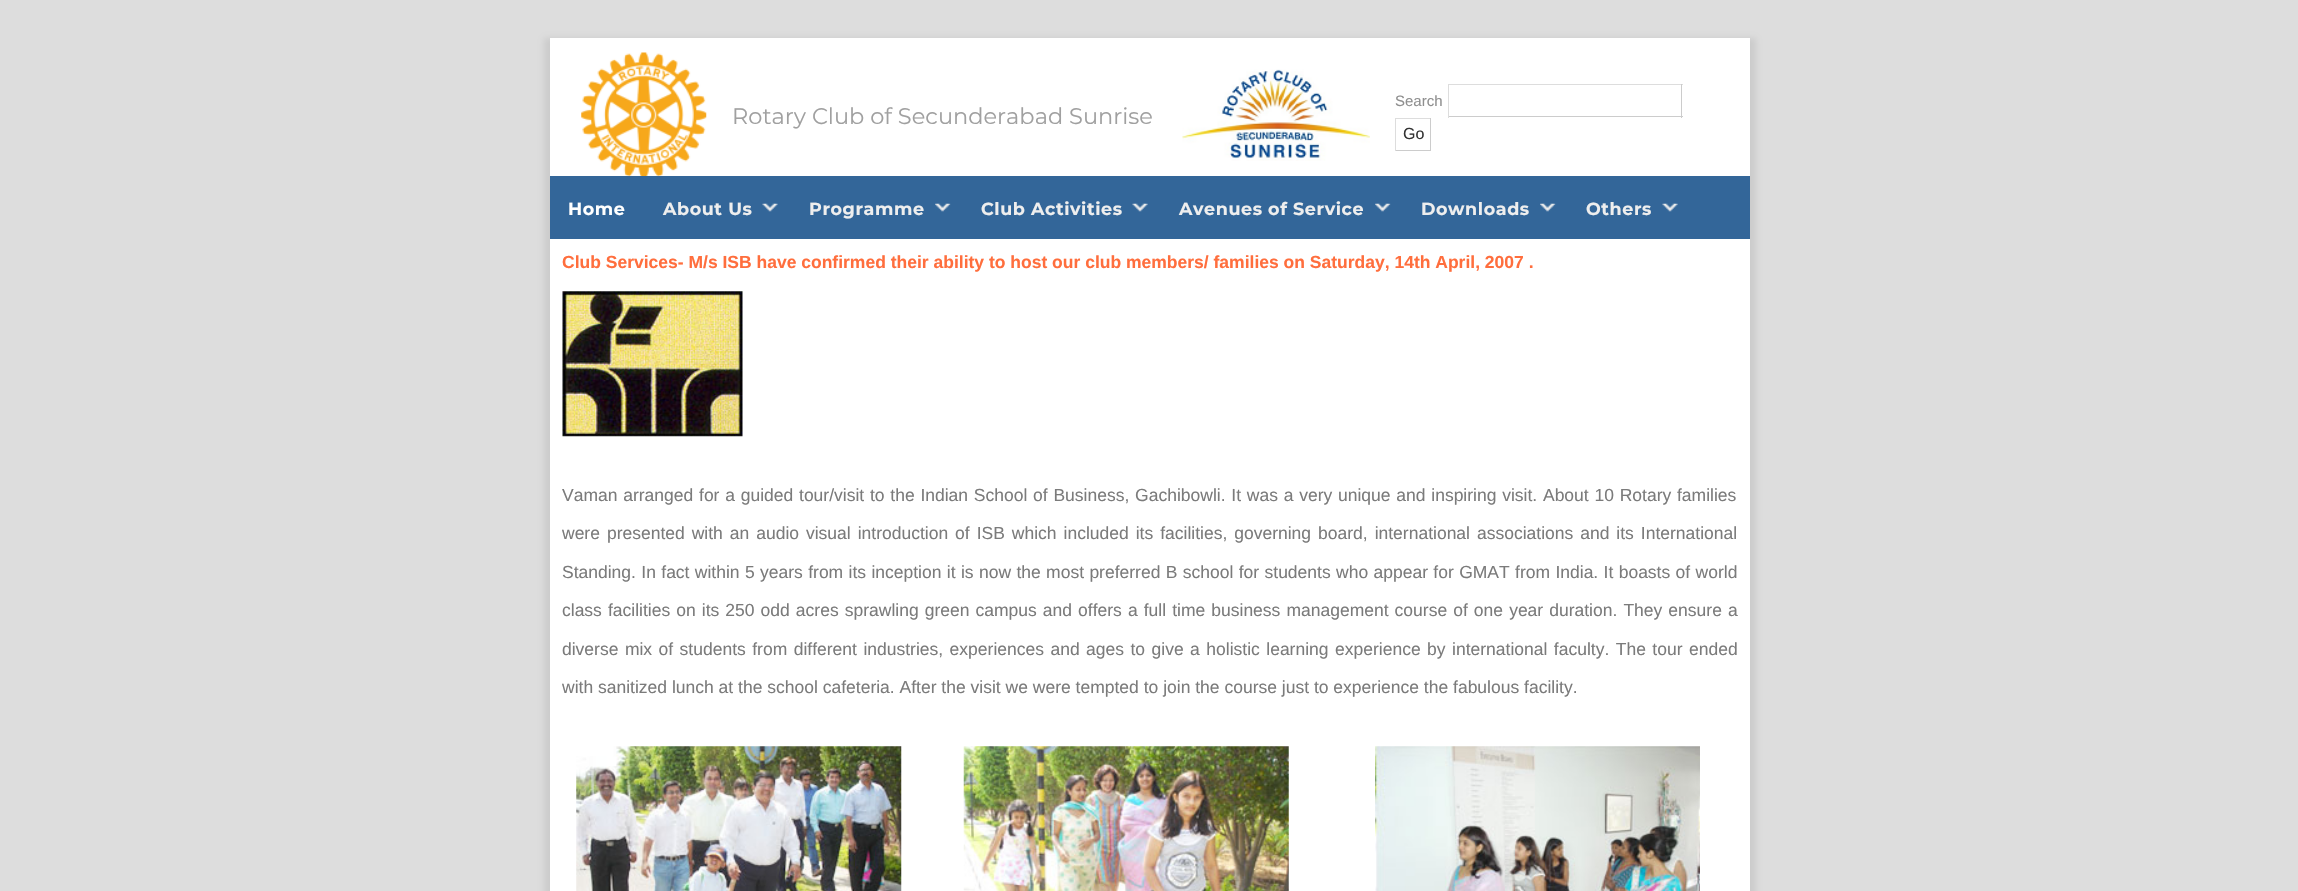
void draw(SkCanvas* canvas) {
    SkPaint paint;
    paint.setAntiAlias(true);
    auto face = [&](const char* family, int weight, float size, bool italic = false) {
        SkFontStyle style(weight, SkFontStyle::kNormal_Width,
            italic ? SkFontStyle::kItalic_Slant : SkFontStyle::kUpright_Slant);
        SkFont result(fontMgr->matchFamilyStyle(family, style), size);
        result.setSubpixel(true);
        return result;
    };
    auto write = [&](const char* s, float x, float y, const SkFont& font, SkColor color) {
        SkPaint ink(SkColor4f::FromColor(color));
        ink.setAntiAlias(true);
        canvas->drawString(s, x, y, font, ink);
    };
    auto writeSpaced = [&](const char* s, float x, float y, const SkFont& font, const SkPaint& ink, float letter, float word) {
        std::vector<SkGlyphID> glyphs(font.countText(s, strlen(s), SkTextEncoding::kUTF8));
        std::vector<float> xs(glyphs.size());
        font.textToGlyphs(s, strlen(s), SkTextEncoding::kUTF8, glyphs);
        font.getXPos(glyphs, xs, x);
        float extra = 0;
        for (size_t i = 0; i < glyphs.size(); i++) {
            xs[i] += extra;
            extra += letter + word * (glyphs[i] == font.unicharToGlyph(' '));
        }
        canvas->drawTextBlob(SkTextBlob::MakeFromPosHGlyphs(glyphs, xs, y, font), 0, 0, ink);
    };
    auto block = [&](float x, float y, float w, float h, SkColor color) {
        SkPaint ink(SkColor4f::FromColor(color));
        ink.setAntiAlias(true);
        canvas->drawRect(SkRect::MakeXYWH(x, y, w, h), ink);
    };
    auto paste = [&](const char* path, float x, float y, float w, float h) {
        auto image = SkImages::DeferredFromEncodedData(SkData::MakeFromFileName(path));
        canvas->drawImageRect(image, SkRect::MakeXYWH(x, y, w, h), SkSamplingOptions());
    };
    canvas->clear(SkColorSetRGB(221, 221, 221));
    paint.setColor(SkColorSetRGB(204, 204, 204));
    paint.setMaskFilter(SkMaskFilter::MakeBlur(kNormal_SkBlurStyle, 3));
    canvas->drawRect(SkRect::MakeXYWH(544, 38, 1212, 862), paint);
    paint.setMaskFilter(nullptr);
    block(550, 38, 1200, 853, SK_ColorWHITE);
    paste("pic1.png", 581, 52, 126, 124);
    auto kFont1 = face("Montserrat", 400, 22.5f);
    write("Rotary Club of Secunderabad Sunrise", 732, 124, kFont1, SkColorSetRGB(160, 160, 160));
    paste("pic2.png", 1182, 69, 188, 92);
    auto kFont2 = face("Liberation Sans", 400, 15);
    write("Search", 1395, 106, kFont2, SkColorSetRGB(143, 143, 143));
    block(1448, 84, 235, 1, SkColorSetRGB(221, 221, 221));
    block(1681, 84, 1, 34, SkColorSetRGB(204, 204, 204));
    block(1448, 116, 235, 1, SkColorSetRGB(204, 204, 204));
    block(1448, 84, 1, 34, SkColorSetRGB(221, 221, 221));
    block(1395, 118, 36, 1, SkColorSetRGB(221, 221, 221));
    block(1430, 118, 1, 33, SkColorSetRGB(204, 204, 204));
    block(1395, 150, 36, 1, SkColorSetRGB(204, 204, 204));
    block(1395, 118, 1, 33, SkColorSetRGB(221, 221, 221));
    auto kFont3 = face("Liberation Sans", 400, 16);
    write("Go", 1403, 139, kFont3, SkColorSetRGB(51, 51, 51));
    block(550, 176, 1200, 63, SkColorSetRGB(51, 102, 153));
    auto kFont4 = face("Montserrat", 700, 17.5f);
    paint.setColor(SK_ColorWHITE);
    writeSpaced("Home", 568, 215, kFont4, paint, 0.6f, 0);
    paste("pic3.png", 762, 203, 16, 9);
    paint.setColor(SkColorSetRGB(238, 238, 238));
    writeSpaced("About Us", 663, 215, kFont4, paint, 0.6f, 0);
    paste("pic4.png", 935, 203, 16, 9);
    writeSpaced("Programme", 809, 215, kFont4, paint, 0.6f, 0);
    paste("pic5.png", 1132, 203, 16, 9);
    writeSpaced("Club Activities", 981, 215, kFont4, paint, 0.6f, 0);
    paste("pic6.png", 1375, 203, 16, 9);
    writeSpaced("Avenues of Service", 1179, 215, kFont4, paint, 0.6f, 0);
    paste("pic4.png", 1540, 203, 16, 9);
    writeSpaced("Downloads", 1421, 215, kFont4, paint, 0.6f, 0);
    paste("pic5.png", 1662, 203, 16, 9);
    writeSpaced("Others", 1586, 215, kFont4, paint, 0.6f, 0);
    auto kFont5 = face("Liberation Sans", 700, 17.5f);
    write("Club Services- M/s ISB have confirmed their ability to host our club members/ families on Saturday, 14th April, 2007 .", 562, 268, kFont5, SkColorSetRGB(255, 110, 61));
    paste("pic7.png", 562, 291, 181, 146);
    auto kFont6 = face("Liberation Sans", 400, 17.5f);
    paint.setColor(SkColorSetRGB(123, 123, 123));
    writeSpaced("Vaman arranged for a guided tour/visit to the Indian School of Business, Gachibowli. It was a very unique and inspiring visit. About 10 Rotary families", 562, 501, kFont6, paint, 0, 0.9f);
    writeSpaced("were presented with an audio visual introduction of ISB which included its facilities, governing board, international associations and its International", 562, 539, kFont6, paint, 0, 2.1f);
    writeSpaced("Standing. In fact within 5 years from its inception it is now the most preferred B school for students who appear for GMAT from India. It boasts of world", 562, 578, kFont6, paint, 0, 0.5f);
    writeSpaced("class facilities on its 250 odd acres sprawling green campus and offers a full time business management course of one year duration. They ensure a", 562, 616, kFont6, paint, 0, 1.2f);
    writeSpaced("diverse mix of students from different industries, experiences and ages to give a holistic learning experience by international faculty. The tour ended", 562, 655, kFont6, paint, 0, 1.6f);
    write("with sanitized lunch at the school cafeteria. After the visit we were tempted to join the course just to experience the fabulous facility.", 562, 693, kFont6, SkColorSetRGB(123, 123, 123));
    paste("pic8.png", 576, 746, 326, 145);
    paste("pic9.png", 963, 746, 326, 145);
    paste("pic10.png", 1375, 746, 325, 145);
}
